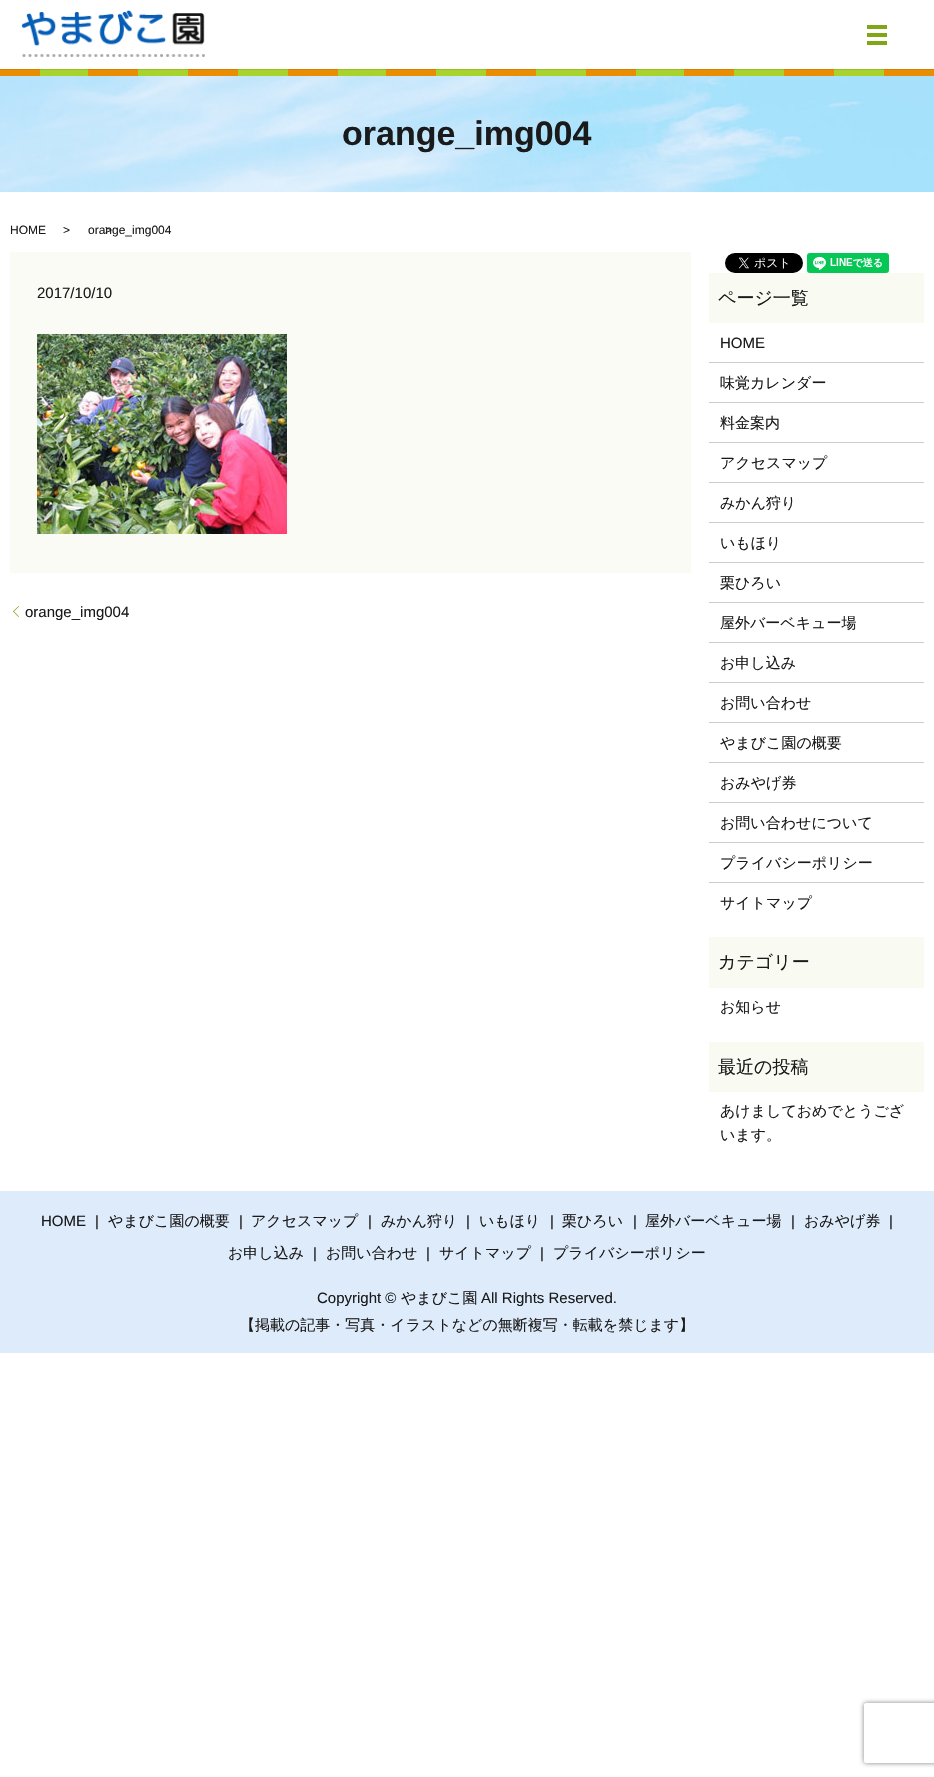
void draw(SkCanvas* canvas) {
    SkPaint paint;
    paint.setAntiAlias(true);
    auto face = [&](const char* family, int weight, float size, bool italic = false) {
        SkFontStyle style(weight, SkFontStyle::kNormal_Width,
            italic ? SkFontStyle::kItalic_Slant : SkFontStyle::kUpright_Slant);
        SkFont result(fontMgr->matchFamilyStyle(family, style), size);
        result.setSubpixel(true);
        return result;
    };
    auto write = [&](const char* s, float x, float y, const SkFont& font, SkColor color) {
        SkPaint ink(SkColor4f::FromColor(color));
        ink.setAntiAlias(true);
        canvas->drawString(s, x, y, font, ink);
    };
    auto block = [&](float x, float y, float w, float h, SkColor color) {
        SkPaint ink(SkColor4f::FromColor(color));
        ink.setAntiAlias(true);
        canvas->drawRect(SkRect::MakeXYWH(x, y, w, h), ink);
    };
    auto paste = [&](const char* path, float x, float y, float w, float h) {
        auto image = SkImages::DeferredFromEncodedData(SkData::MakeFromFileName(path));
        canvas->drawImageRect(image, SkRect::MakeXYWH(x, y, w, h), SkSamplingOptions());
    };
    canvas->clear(SK_ColorWHITE);
    paste("pic2.png", 0, 69, 934, 7);
    canvas->save();
    canvas->clipRect(SkRect::MakeXYWH(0, 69, 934, 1));
    paint.setColor(SkColorSetARGB(26, 0, 0, 0));
    paint.setMaskFilter(SkMaskFilter::MakeBlur(kNormal_SkBlurStyle, 0.5f));
    canvas->drawRect(SkRect::MakeXYWH(0, 1, 934, 69), paint);
    paint.setMaskFilter(nullptr);
    canvas->restore();
    paste("pic1.png", 21, 10, 184, 47);
    block(867, 25, 20, 4, SkColorSetRGB(127, 166, 22));
    block(867, 33, 20, 4, SkColorSetRGB(127, 166, 22));
    block(867, 41, 20, 4, SkColorSetRGB(127, 166, 22));
    paste("pic3.png", 0, 76, 934, 116);
    auto kFont1 = face("Liberation Sans", 700, 34);
    write("orange_img004", 342, 145, kFont1, SkColorSetRGB(27, 26, 26));
    auto kFont2 = face("Liberation Sans", 400, 12);
    write("HOME", 10, 234, kFont2, SkColorSetRGB(27, 26, 26));
    write(">", 63, 234, kFont2, SkColorSetRGB(27, 26, 26));
    write(">", 105, 234, kFont2, SkColorSetRGB(27, 26, 26));
    write("orange_img004", 88, 234, kFont2, SkColorSetRGB(27, 26, 26));
    block(10, 252, 681, 321, SkColorSetRGB(249, 251, 244));
    auto kFont3 = face("Liberation Sans", 400, 15);
    write("2017/10/10", 37, 298, kFont3, SkColorSetRGB(27, 26, 26));
    paste("pic4.png", 37, 334, 250, 200);
    paint.setColor(SkColorSetRGB(127, 166, 22));
    canvas->drawPath(SkPathBuilder().moveTo(13, 611.5f).lineTo(18.5f, 606).lineTo(19, 606.5f).lineTo(13.5f, 612).close().detach(), paint);
    write("orange_img004", 25, 617, kFont3, SkColorSetRGB(27, 26, 26));
    canvas->drawPath(SkPathBuilder().moveTo(18.5f, 617).lineTo(13, 611.5f).lineTo(13.5f, 611).lineTo(19, 616.5f).close().detach(), paint);
    paste("pic5.png", 725, 253, 78, 20);
    paste("pic6.png", 807, 253, 82, 20);
    block(709, 273, 215, 50, SkColorSetRGB(249, 251, 243));
    auto kFont4 = face("WenQuanYi Zen Hei", 500, 18);
    write("ページ一覧", 718, 304, kFont4, SkColorSetRGB(27, 26, 26));
    block(709, 362, 215, 1, SkColorSetRGB(204, 204, 204));
    write("HOME", 720, 348, kFont3, SkColorSetRGB(27, 26, 26));
    block(709, 402, 215, 1, SkColorSetRGB(204, 204, 204));
    auto kFont5 = face("WenQuanYi Zen Hei", 500, 15);
    write("味覚カレンダー", 720, 388, kFont5, SkColorSetRGB(27, 26, 26));
    block(709, 442, 215, 1, SkColorSetRGB(204, 204, 204));
    write("料金案内", 720, 428, kFont5, SkColorSetRGB(27, 26, 26));
    block(709, 482, 215, 1, SkColorSetRGB(204, 204, 204));
    write("アクセスマップ", 720, 468, kFont5, SkColorSetRGB(27, 26, 26));
    block(709, 522, 215, 1, SkColorSetRGB(204, 204, 204));
    write("みかん狩り", 720, 508, kFont5, SkColorSetRGB(27, 26, 26));
    block(709, 562, 215, 1, SkColorSetRGB(204, 204, 204));
    write("いもほり", 720, 548, kFont5, SkColorSetRGB(27, 26, 26));
    block(709, 602, 215, 1, SkColorSetRGB(204, 204, 204));
    write("栗ひろい", 720, 588, kFont5, SkColorSetRGB(27, 26, 26));
    block(709, 642, 215, 1, SkColorSetRGB(204, 204, 204));
    write("屋外バーベキュー場", 720, 628, kFont5, SkColorSetRGB(27, 26, 26));
    block(709, 682, 215, 1, SkColorSetRGB(204, 204, 204));
    write("お申し込み", 720, 668, kFont5, SkColorSetRGB(27, 26, 26));
    block(709, 722, 215, 1, SkColorSetRGB(204, 204, 204));
    write("お問い合わせ", 720, 708, kFont5, SkColorSetRGB(27, 26, 26));
    block(709, 762, 215, 1, SkColorSetRGB(204, 204, 204));
    write("やまびこ園の概要", 720, 748, kFont5, SkColorSetRGB(27, 26, 26));
    block(709, 802, 215, 1, SkColorSetRGB(204, 204, 204));
    write("おみやげ券", 720, 788, kFont5, SkColorSetRGB(27, 26, 26));
    block(709, 842, 215, 1, SkColorSetRGB(204, 204, 204));
    write("お問い合わせについて", 720, 828, kFont5, SkColorSetRGB(27, 26, 26));
    block(709, 882, 215, 1, SkColorSetRGB(204, 204, 204));
    write("プライバシーポリシー", 720, 868, kFont5, SkColorSetRGB(27, 26, 26));
    write("サイトマップ", 720, 908, kFont5, SkColorSetRGB(27, 26, 26));
    block(709, 937, 215, 51, SkColorSetRGB(249, 251, 243));
    write("カテゴリー", 718, 968, kFont4, SkColorSetRGB(27, 26, 26));
    write("お知らせ", 720, 1012, kFont5, SkColorSetRGB(27, 26, 26));
    block(709, 1042, 215, 50, SkColorSetRGB(249, 251, 243));
    write("最近の投稿", 718, 1073, kFont4, SkColorSetRGB(27, 26, 26));
    write("あけましておめでとうござ", 720, 1116, kFont5, SkColorSetRGB(27, 26, 26));
    write("います。", 720, 1140, kFont5, SkColorSetRGB(27, 26, 26));
    block(0, 1191, 934, 162, SkColorSetRGB(221, 235, 251));
    write("HOME", 41, 1226, kFont3, SkColorSetRGB(27, 26, 26));
    write("|", 95, 1226, kFont3, SkColorSetRGB(27, 26, 26));
    write("やまびこ園の概要", 108, 1226, kFont5, SkColorSetRGB(27, 26, 26));
    write("|", 239, 1226, kFont3, SkColorSetRGB(27, 26, 26));
    write("アクセスマップ", 251, 1226, kFont5, SkColorSetRGB(27, 26, 26));
    write("|", 368, 1226, kFont3, SkColorSetRGB(27, 26, 26));
    write("みかん狩り", 381, 1226, kFont5, SkColorSetRGB(27, 26, 26));
    write("|", 466, 1226, kFont3, SkColorSetRGB(27, 26, 26));
    write("いもほり", 479, 1226, kFont5, SkColorSetRGB(27, 26, 26));
    write("|", 550, 1226, kFont3, SkColorSetRGB(27, 26, 26));
    write("栗ひろい", 562, 1226, kFont5, SkColorSetRGB(27, 26, 26));
    write("|", 633, 1226, kFont3, SkColorSetRGB(27, 26, 26));
    write("屋外バーベキュー場", 645, 1226, kFont5, SkColorSetRGB(27, 26, 26));
    write("|", 791, 1226, kFont3, SkColorSetRGB(27, 26, 26));
    write("おみやげ券", 804, 1226, kFont5, SkColorSetRGB(27, 26, 26));
    write("|", 889, 1226, kFont3, SkColorSetRGB(27, 26, 26));
    write("お申し込み", 228, 1258, kFont5, SkColorSetRGB(27, 26, 26));
    write("|", 313, 1258, kFont3, SkColorSetRGB(27, 26, 26));
    write("お問い合わせ", 326, 1258, kFont5, SkColorSetRGB(27, 26, 26));
    write("|", 426, 1258, kFont3, SkColorSetRGB(27, 26, 26));
    write("サイトマップ", 439, 1258, kFont5, SkColorSetRGB(27, 26, 26));
    write("|", 540, 1258, kFont3, SkColorSetRGB(27, 26, 26));
    write("プライバシーポリシー", 553, 1258, kFont5, SkColorSetRGB(27, 26, 26));
    write("Copyright ©", 317, 1303, kFont3, SkColorSetRGB(27, 26, 26));
    write("やまびこ園", 401, 1303, kFont5, SkColorSetRGB(27, 26, 26));
    write("All Rights Reserved.", 481, 1303, kFont3, SkColorSetRGB(27, 26, 26));
    write("【掲載の記事・写真・イラストなどの無断複写・転載を禁じます】", 240, 1330, kFont5, SkColorSetRGB(27, 26, 26));
    canvas->save();
    canvas->clipPath(SkPathBuilder(SkPathFillType::kEvenOdd).moveTo(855, 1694).lineTo(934, 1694).lineTo(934, 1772).lineTo(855, 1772).close().moveTo(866, 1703).lineTo(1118, 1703).cubicTo(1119, 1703, 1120, 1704, 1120, 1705).lineTo(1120, 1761).cubicTo(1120, 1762, 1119, 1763, 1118, 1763).lineTo(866, 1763).cubicTo(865, 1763, 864, 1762, 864, 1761).lineTo(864, 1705).cubicTo(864, 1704, 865, 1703, 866, 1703).close().detach(), true);
    paint.setColor(SkColorSetRGB(128, 128, 128));
    paint.setMaskFilter(SkMaskFilter::MakeBlur(kNormal_SkBlurStyle, 2.5f));
    canvas->drawRoundRect(SkRect::MakeXYWH(864, 1703, 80, 60), 2, 2, paint);
    paint.setMaskFilter(nullptr);
    canvas->restore();
}
